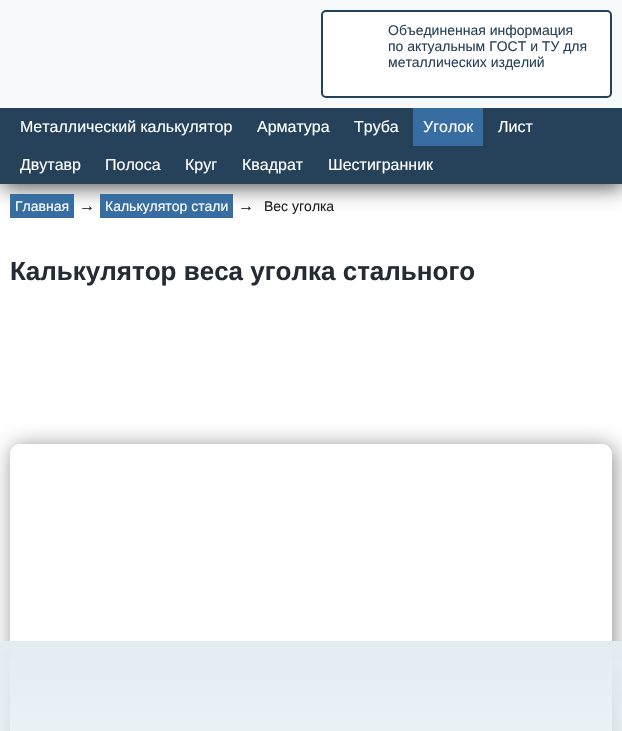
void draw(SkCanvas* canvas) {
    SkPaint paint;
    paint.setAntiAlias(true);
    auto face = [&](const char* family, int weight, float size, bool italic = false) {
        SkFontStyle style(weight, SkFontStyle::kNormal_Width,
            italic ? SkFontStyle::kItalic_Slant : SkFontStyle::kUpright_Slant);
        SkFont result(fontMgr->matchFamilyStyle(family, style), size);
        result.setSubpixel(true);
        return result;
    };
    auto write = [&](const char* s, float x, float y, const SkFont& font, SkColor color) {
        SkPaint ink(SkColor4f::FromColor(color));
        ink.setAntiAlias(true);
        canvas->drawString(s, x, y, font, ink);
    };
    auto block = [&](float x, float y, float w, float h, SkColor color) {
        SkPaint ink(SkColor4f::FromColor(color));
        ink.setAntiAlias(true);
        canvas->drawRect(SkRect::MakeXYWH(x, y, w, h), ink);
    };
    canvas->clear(SK_ColorWHITE);
    paint.setColor(SkColorSetARGB(191, 0, 0, 0));
    paint.setMaskFilter(SkMaskFilter::MakeBlur(kNormal_SkBlurStyle, 10.5f));
    canvas->drawRect(SkRect::MakeXYWH(2, 110, 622, 76), paint);
    paint.setMaskFilter(nullptr);
    block(0, 0, 622, 108, SkColorSetRGB(247, 250, 250));
    paint.setColor(SK_ColorWHITE);
    canvas->drawRoundRect(SkRect::MakeXYWH(322, 11, 289, 86), 4, 4, paint);
    paint.setStyle(SkPaint::kStroke_Style);
    paint.setStrokeWidth(2);
    paint.setColor(SkColorSetRGB(38, 66, 90));
    canvas->drawRoundRect(SkRect::MakeXYWH(322, 11, 289, 86), 4, 4, paint);
    auto kFont1 = face("Liberation Sans", 400, 14);
    write("Объединенная информация", 388, 35, kFont1, SkColorSetRGB(38, 66, 90));
    write("по актуальным ГОСТ и ТУ для", 388, 51, kFont1, SkColorSetRGB(38, 66, 90));
    write("металлических изделий", 388, 67, kFont1, SkColorSetRGB(38, 66, 90));
    block(0, 108, 622, 76, SkColorSetRGB(38, 66, 90));
    auto kFont2 = face("Liberation Sans", 400, 16);
    write("Металлический калькулятор", 20, 132, kFont2, SK_ColorWHITE);
    write("Арматура", 257, 132, kFont2, SK_ColorWHITE);
    write("Труба", 354, 132, kFont2, SK_ColorWHITE);
    block(413, 108, 70, 38, SkColorSetRGB(55, 109, 160));
    write("Уголок", 423, 132, kFont2, SK_ColorWHITE);
    write("Лист", 498, 132, kFont2, SK_ColorWHITE);
    write("Двутавр", 20, 170, kFont2, SK_ColorWHITE);
    write("Полоса", 105, 170, kFont2, SK_ColorWHITE);
    write("Круг", 185, 170, kFont2, SK_ColorWHITE);
    write("Квадрат", 242, 170, kFont2, SK_ColorWHITE);
    write("Шестигранник", 328, 170, kFont2, SK_ColorWHITE);
    block(10, 194, 64, 24, SkColorSetRGB(55, 109, 160));
    write("Главная", 15, 211, kFont1, SK_ColorWHITE);
    write("→", 79, 211, kFont2, SkColorSetRGB(32, 32, 32));
    block(100, 194, 133, 24, SkColorSetRGB(55, 109, 160));
    write("Калькулятор стали", 105, 211, kFont1, SK_ColorWHITE);
    write("→", 238, 211, kFont2, SkColorSetRGB(32, 32, 32));
    write("Вес уголка", 264, 211, kFont1, SkColorSetRGB(32, 32, 32));
    auto kFont3 = face("Liberation Sans", 700, 26);
    write("Калькулятор веса уголка стального", 10, 280, kFont3, SkColorSetRGB(35, 44, 52));
    canvas->save();
    canvas->clipPath(SkPathBuilder(SkPathFillType::kEvenOdd).moveTo(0, 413).lineTo(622, 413).lineTo(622, 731).lineTo(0, 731).close().moveTo(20, 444).lineTo(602, 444).cubicTo(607.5f, 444, 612, 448.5f, 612, 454).lineTo(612, 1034).cubicTo(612, 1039.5f, 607.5f, 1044, 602, 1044).lineTo(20, 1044).cubicTo(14.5f, 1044, 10, 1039.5f, 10, 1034).lineTo(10, 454).cubicTo(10, 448.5f, 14.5f, 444, 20, 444).close().detach(), true);
    paint.setStyle(SkPaint::kFill_Style);
    paint.setColor(SkColorSetARGB(115, 0, 0, 0));
    paint.setMaskFilter(SkMaskFilter::MakeBlur(kNormal_SkBlurStyle, 10.5f));
    canvas->drawRoundRect(SkRect::MakeXYWH(12, 446, 602, 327), 10, 10, paint);
    paint.setMaskFilter(nullptr);
    canvas->restore();
    {
        const SkColor colors[] = {SkColorSetRGB(226, 237, 242), SkColorSetARGB(191, 226, 237, 242)};
        const float stops[] = {0, 1};
        const SkPoint ends[] = {{311, 641}, {311, 731}};
        paint.setShader(SkGradientShader::MakeLinear(ends, colors, stops, 2, SkTileMode::kClamp));
        paint.setAlpha(255);
    }
    canvas->drawRect(SkRect::MakeXYWH(0, 641, 622, 90), paint);
}
